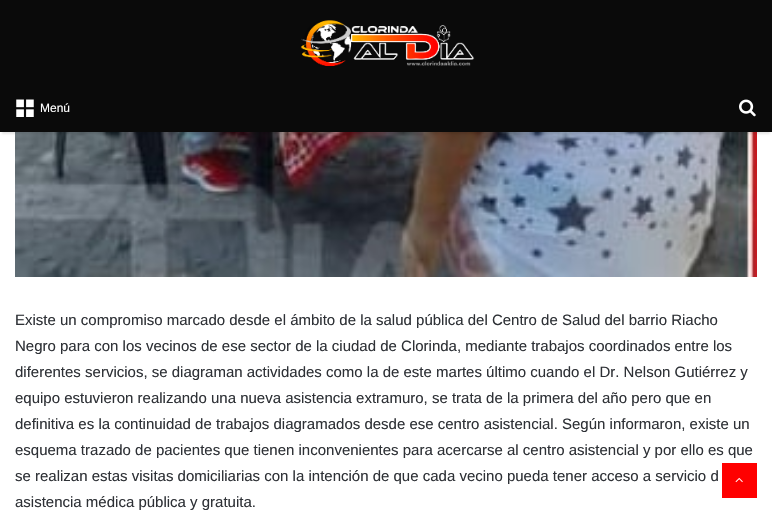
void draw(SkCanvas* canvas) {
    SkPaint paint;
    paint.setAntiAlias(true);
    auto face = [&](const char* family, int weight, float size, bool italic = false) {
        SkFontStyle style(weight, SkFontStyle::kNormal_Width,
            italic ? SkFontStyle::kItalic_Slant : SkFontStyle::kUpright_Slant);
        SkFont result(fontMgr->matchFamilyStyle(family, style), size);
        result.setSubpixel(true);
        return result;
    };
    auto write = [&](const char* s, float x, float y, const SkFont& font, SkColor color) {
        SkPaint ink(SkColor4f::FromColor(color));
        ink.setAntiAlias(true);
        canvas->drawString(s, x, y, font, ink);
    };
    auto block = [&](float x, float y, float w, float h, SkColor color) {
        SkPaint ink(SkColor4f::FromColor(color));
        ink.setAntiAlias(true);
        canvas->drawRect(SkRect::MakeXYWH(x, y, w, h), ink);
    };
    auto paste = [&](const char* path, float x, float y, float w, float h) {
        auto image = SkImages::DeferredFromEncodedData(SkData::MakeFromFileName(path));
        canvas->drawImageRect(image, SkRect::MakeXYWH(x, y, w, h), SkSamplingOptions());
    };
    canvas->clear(SK_ColorWHITE);
    paste("pic4.png", 15, 132, 742, 145);
    paint.setColor(SkColorSetARGB(26, 0, 0, 0));
    paint.setMaskFilter(SkMaskFilter::MakeBlur(kNormal_SkBlurStyle, 1));
    canvas->drawRect(SkRect::MakeXYWH(2, 6, 768, 128), paint);
    paint.setMaskFilter(nullptr);
    block(0, 0, 772, 132, SkColorSetRGB(10, 10, 10));
    paste("pic1.png", 300, 20, 175, 47);
    paste("pic2.png", 16, 99, 18, 18);
    auto kFont1 = face("Liberation Sans", 400, 12);
    write("Menú", 40, 112, kFont1, SK_ColorWHITE);
    paste("pic3.png", 739, 99, 17, 18);
    auto kFont2 = face("Liberation Sans", 400, 15);
    write("Existe un compromiso marcado desde el ámbito de la salud pública del Centro de Salud del barrio Riacho", 15, 325, kFont2, SkColorSetRGB(46, 49, 54));
    write("Negro para con los vecinos de ese sector de la ciudad de Clorinda, mediante trabajos coordinados entre los", 15, 351, kFont2, SkColorSetRGB(46, 49, 54));
    write("diferentes servicios, se diagraman actividades como la de este martes último cuando el Dr. Nelson Gutiérrez y", 15, 377, kFont2, SkColorSetRGB(46, 49, 54));
    write("equipo estuvieron realizando una nueva asistencia extramuro, se trata de la primera del año pero que en", 15, 403, kFont2, SkColorSetRGB(46, 49, 54));
    write("definitiva es la continuidad de trabajos diagramados desde ese centro asistencial. Según informaron, existe un", 15, 429, kFont2, SkColorSetRGB(46, 49, 54));
    write("esquema trazado de pacientes que tienen inconvenientes para acercarse al centro asistencial y por ello es que", 15, 455, kFont2, SkColorSetRGB(46, 49, 54));
    write("se realizan estas visitas domiciliarias con la intención de que cada vecino pueda tener acceso a servicio d", 15, 481, kFont2, SkColorSetRGB(46, 49, 54));
    write("asistencia médica pública y gratuita.", 15, 507, kFont2, SkColorSetRGB(46, 49, 54));
    {
        const SkColor colors[] = {SkColorSetARGB(0, 255, 255, 255), SK_ColorWHITE};
        const float stops[] = {0.5f, 1};
        const SkPoint ends[] = {{386, 307}, {386, 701}};
        paint.setShader(SkGradientShader::MakeLinear(ends, colors, stops, 2, SkTileMode::kClamp));
        paint.setAlpha(255);
    }
    canvas->drawRect(SkRect::MakeXYWH(139, 508, 70, 2), paint);
    block(722, 463, 35, 35, SkColorSetRGB(255, 0, 0));
    paste("pic5.png", 735, 477, 8, 6);
}
